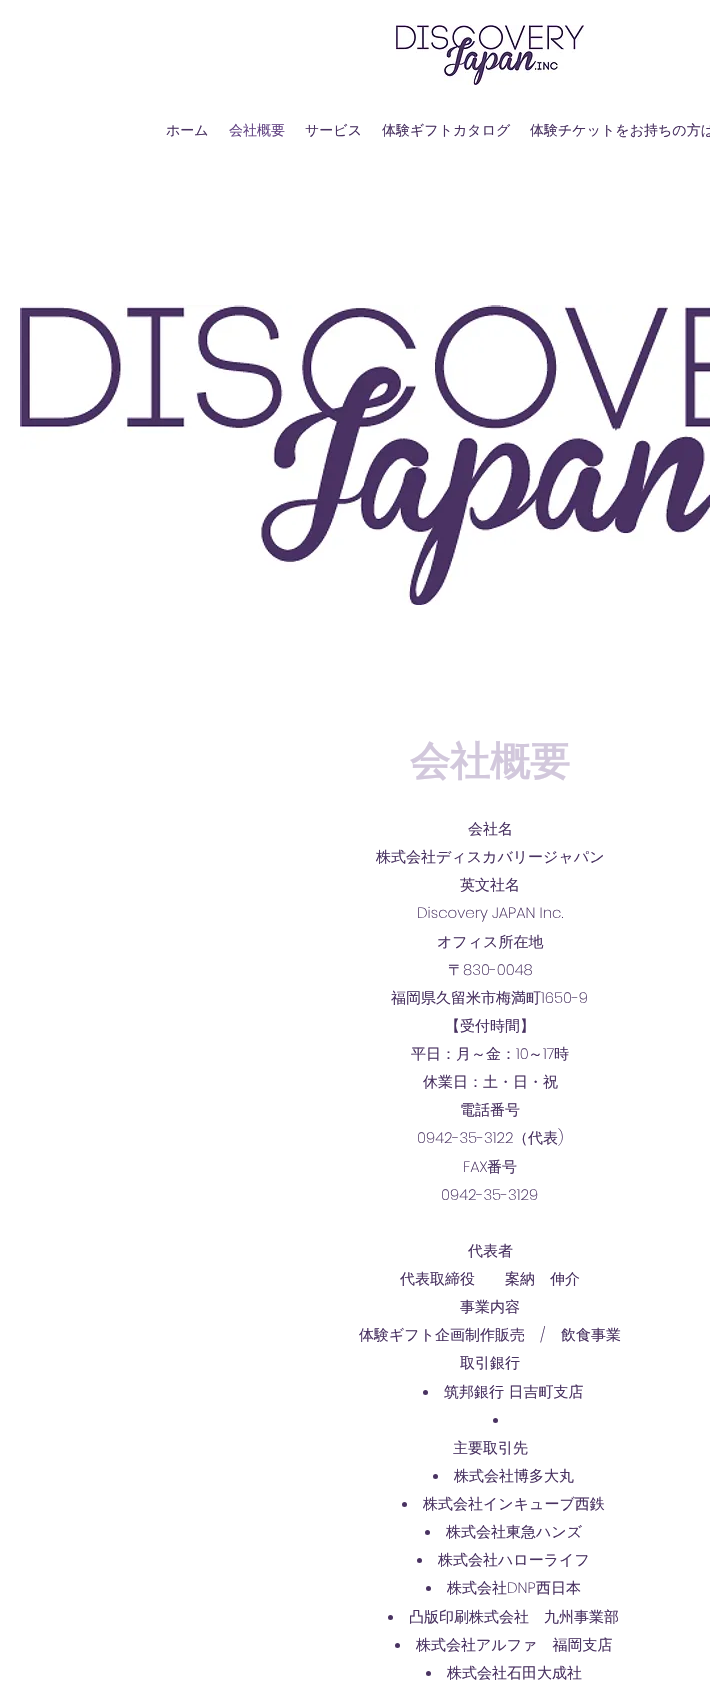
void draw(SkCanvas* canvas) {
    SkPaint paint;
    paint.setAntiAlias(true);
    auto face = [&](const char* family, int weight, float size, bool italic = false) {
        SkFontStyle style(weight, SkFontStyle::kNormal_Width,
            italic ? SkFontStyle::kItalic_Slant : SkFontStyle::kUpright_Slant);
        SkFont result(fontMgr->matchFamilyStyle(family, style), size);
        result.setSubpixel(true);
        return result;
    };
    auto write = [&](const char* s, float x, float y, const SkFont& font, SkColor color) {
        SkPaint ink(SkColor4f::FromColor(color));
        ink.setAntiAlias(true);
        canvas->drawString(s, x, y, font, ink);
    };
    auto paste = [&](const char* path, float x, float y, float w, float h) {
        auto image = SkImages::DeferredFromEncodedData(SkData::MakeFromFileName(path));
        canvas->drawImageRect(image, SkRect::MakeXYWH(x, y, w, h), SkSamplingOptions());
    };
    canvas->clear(SK_ColorWHITE);
    paste("pic1.png", 396, 25, 188, 60);
    auto kFont1 = face("WenQuanYi Zen Hei", 500, 14);
    write("ホーム", 166, 135, kFont1, SkColorSetRGB(73, 50, 97));
    write("会社概要", 229, 135, kFont1, SkColorSetRGB(98, 67, 131));
    write("サービス", 305, 135, kFont1, SkColorSetRGB(73, 50, 97));
    write("体験ギフトカタログ", 382, 135, kFont1, SkColorSetRGB(73, 50, 97));
    write("体験チケットをお持ちの方は", 530, 135, kFont1, SkColorSetRGB(73, 50, 97));
    paste("pic2.png", 20, 305, 690, 300);
    auto kFont2 = face("WenQuanYi Zen Hei", 700, 40);
    write("会社概要", 410, 775, kFont2, SkColorSetRGB(210, 200, 220));
    auto kFont3 = face("WenQuanYi Zen Hei", 500, 15);
    write("会社名", 468, 834, kFont3, SkColorSetRGB(73, 50, 97));
    write("株式会社ディスカバリージャパン", 376, 862, kFont3, SkColorSetRGB(73, 50, 97));
    write("英文社名", 460, 890, kFont3, SkColorSetRGB(73, 50, 97));
    auto kFont4 = face("Poppins", 200, 15);
    write("Discovery JAPAN Inc.", 417, 918, kFont4, SkColorSetRGB(73, 50, 97));
    write("オフィス所在地", 437, 947, kFont3, SkColorSetRGB(73, 50, 97));
    write("〒", 448, 975, kFont3, SkColorSetRGB(73, 50, 97));
    write("830-0048", 463, 975, kFont4, SkColorSetRGB(73, 50, 97));
    write("福岡県久留米市梅満町", 391, 1003, kFont3, SkColorSetRGB(73, 50, 97));
    write("1650-9", 541, 1003, kFont4, SkColorSetRGB(73, 50, 97));
    write("【受付時間】", 445, 1031, kFont3, SkColorSetRGB(73, 50, 97));
    write("平日：月～金：", 411, 1059, kFont3, SkColorSetRGB(73, 50, 97));
    write("10", 516, 1059, kFont4, SkColorSetRGB(73, 50, 97));
    write("～", 528, 1059, kFont3, SkColorSetRGB(73, 50, 97));
    write("17", 543, 1059, kFont4, SkColorSetRGB(73, 50, 97));
    write("時", 554, 1059, kFont3, SkColorSetRGB(73, 50, 97));
    write("休業日：土・日・祝", 423, 1087, kFont3, SkColorSetRGB(73, 50, 97));
    write("電話番号", 460, 1115, kFont3, SkColorSetRGB(73, 50, 97));
    write("0942-35-3122", 417, 1143, kFont4, SkColorSetRGB(73, 50, 97));
    write("（代表", 513, 1143, kFont3, SkColorSetRGB(73, 50, 97));
    write(")", 558, 1143, kFont4, SkColorSetRGB(73, 50, 97));
    write("FAX", 463, 1172, kFont4, SkColorSetRGB(73, 50, 97));
    write("番号", 487, 1172, kFont3, SkColorSetRGB(73, 50, 97));
    write("0942-35-3129", 441, 1200, kFont4, SkColorSetRGB(73, 50, 97));
    write("代表者", 468, 1256, kFont3, SkColorSetRGB(73, 50, 97));
    write("代表取締役　　案納　伸介", 400, 1284, kFont3, SkColorSetRGB(73, 50, 97));
    write("事業内容", 460, 1312, kFont3, SkColorSetRGB(73, 50, 97));
    write("体験ギフト企画制作販売", 359, 1340, kFont3, SkColorSetRGB(73, 50, 97));
    write("/", 540, 1340, kFont4, SkColorSetRGB(73, 50, 97));
    write("飲食事業", 561, 1340, kFont3, SkColorSetRGB(73, 50, 97));
    write("取引銀行", 460, 1368, kFont3, SkColorSetRGB(73, 50, 97));
    paint.setColor(SkColorSetRGB(73, 50, 97));
    canvas->drawCircle(425.5f, 1392.5f, 2.5f, paint);
    write("筑邦銀行 日吉町支店", 444, 1397, kFont3, SkColorSetRGB(73, 50, 97));
    canvas->drawCircle(495.5f, 1420.5f, 2.5f, paint);
    write("主要取引先", 453, 1453, kFont3, SkColorSetRGB(73, 50, 97));
    canvas->drawCircle(435.5f, 1476.5f, 2.5f, paint);
    write("株式会社博多大丸", 454, 1481, kFont3, SkColorSetRGB(73, 50, 97));
    canvas->drawCircle(404.5f, 1504.5f, 2.5f, paint);
    write("株式会社インキューブ西鉄", 423, 1509, kFont3, SkColorSetRGB(73, 50, 97));
    canvas->drawCircle(427.5f, 1532.5f, 2.5f, paint);
    write("株式会社東急ハンズ", 446, 1537, kFont3, SkColorSetRGB(73, 50, 97));
    canvas->drawCircle(419.5f, 1560.5f, 2.5f, paint);
    write("株式会社ハローライフ", 438, 1565, kFont3, SkColorSetRGB(73, 50, 97));
    canvas->drawCircle(428.5f, 1588.5f, 2.5f, paint);
    write("株式会社", 447, 1593, kFont3, SkColorSetRGB(73, 50, 97));
    write("DNP", 507, 1593, kFont4, SkColorSetRGB(73, 50, 97));
    write("西日本", 536, 1593, kFont3, SkColorSetRGB(73, 50, 97));
    canvas->drawCircle(390.5f, 1617.5f, 2.5f, paint);
    write("凸版印刷株式会社　九州事業部", 409, 1622, kFont3, SkColorSetRGB(73, 50, 97));
    canvas->drawCircle(397.5f, 1645.5f, 2.5f, paint);
    write("株式会社アルファ　福岡支店", 416, 1650, kFont3, SkColorSetRGB(73, 50, 97));
    canvas->drawCircle(428.5f, 1673.5f, 2.5f, paint);
    write("株式会社石田大成社", 447, 1678, kFont3, SkColorSetRGB(73, 50, 97));
}
